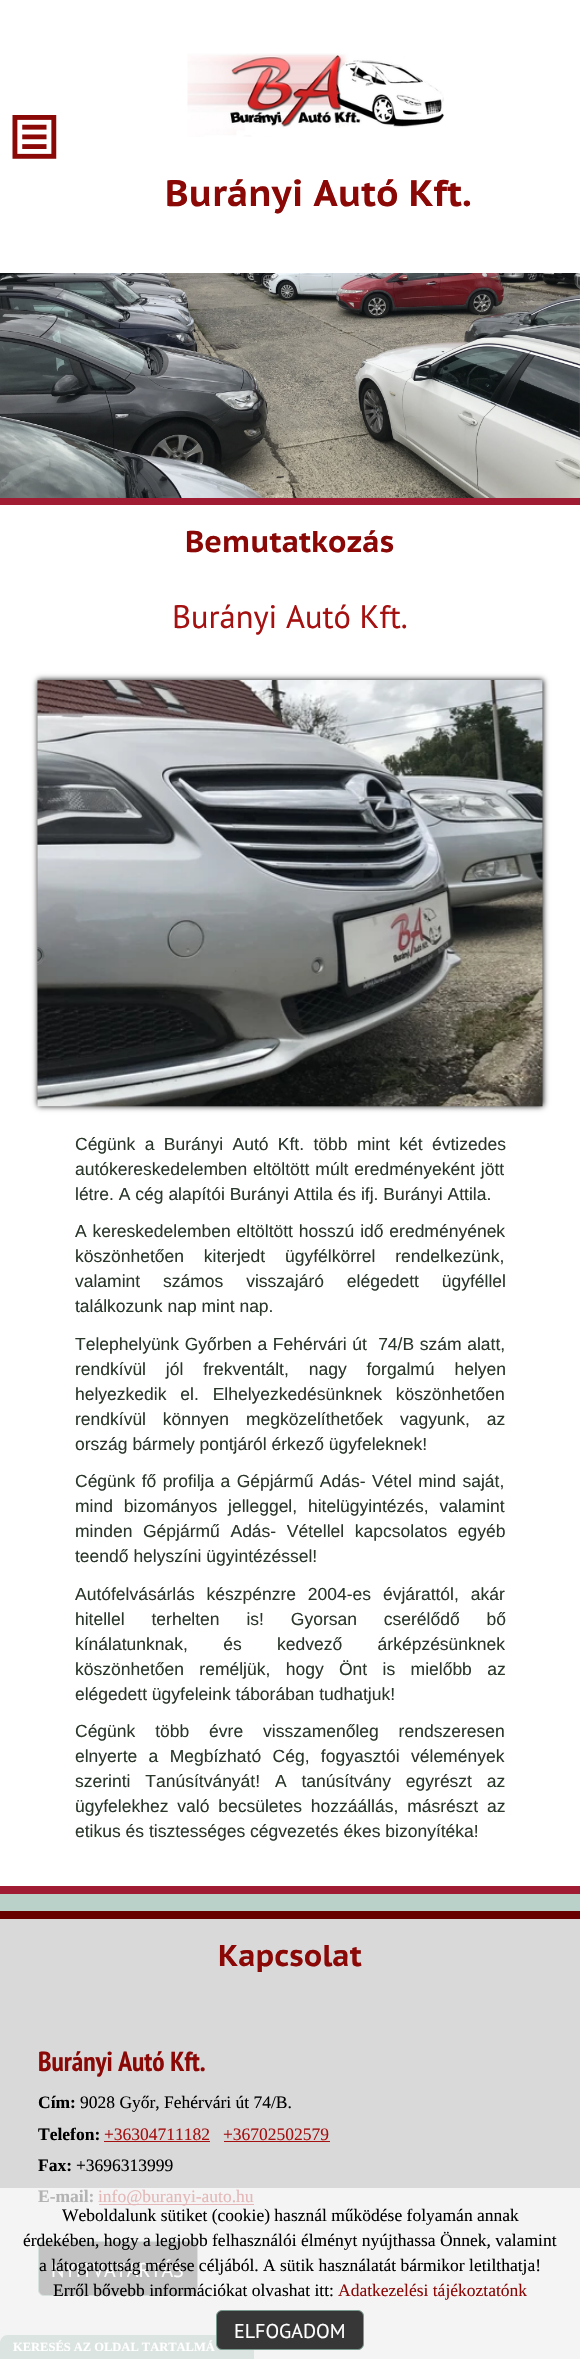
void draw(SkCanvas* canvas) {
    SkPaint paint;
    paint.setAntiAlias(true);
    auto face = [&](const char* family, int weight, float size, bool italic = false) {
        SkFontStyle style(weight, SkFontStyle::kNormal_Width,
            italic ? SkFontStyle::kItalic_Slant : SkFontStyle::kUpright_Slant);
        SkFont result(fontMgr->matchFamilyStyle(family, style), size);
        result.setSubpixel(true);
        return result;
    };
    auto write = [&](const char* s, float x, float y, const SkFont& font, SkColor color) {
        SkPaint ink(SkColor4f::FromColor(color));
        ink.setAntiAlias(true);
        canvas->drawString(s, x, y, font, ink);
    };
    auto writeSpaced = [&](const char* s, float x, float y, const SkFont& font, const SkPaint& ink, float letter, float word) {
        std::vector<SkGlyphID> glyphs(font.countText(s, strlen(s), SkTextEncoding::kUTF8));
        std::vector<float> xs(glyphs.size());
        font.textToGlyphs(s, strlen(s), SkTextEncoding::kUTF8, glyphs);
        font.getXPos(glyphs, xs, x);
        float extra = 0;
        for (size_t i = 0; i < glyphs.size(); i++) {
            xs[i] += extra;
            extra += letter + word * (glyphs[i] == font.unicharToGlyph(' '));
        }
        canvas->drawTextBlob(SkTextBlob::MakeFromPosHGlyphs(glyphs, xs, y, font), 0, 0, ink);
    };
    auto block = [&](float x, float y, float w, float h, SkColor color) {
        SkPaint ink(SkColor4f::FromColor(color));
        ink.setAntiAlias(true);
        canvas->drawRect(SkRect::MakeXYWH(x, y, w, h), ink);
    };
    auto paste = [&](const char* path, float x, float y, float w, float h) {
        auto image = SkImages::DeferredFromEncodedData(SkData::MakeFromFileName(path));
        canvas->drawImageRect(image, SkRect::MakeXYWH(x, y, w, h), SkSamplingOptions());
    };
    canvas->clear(SkColorSetRGB(186, 209, 201));
    block(0, 0, 580, 273, SK_ColorWHITE);
    paste("pic1.png", 12, 115, 45, 44);
    paste("pic2.png", 187, 53, 257, 84);
    auto kFont1 = face("PT Sans Caption", 700, 36.75f);
    write("Burányi Autó Kft.", 165, 206, kFont1, SkColorSetRGB(138, 8, 6));
    paste("pic4.png", 579, 273, 1, 225);
    paste("pic3.png", 0, 273, 580, 225);
    block(0, 505, 580, 1381, SK_ColorWHITE);
    block(0, 498, 580, 7, SkColorSetRGB(159, 28, 50));
    auto kFont2 = face("PT Sans Caption", 700, 30);
    write("Bemutatkozás", 185, 552, kFont2, SkColorSetRGB(138, 8, 6));
    auto kFont3 = face("PT Sans", 400, 32.5f);
    write("Burányi Autó Kft.", 172, 628, kFont3, SkColorSetRGB(165, 17, 17));
    paint.setColor(SK_ColorBLACK);
    paint.setMaskFilter(SkMaskFilter::MakeBlur(kNormal_SkBlurStyle, 3));
    canvas->drawRect(SkRect::MakeXYWH(38, 680, 505, 426), paint);
    paint.setMaskFilter(nullptr);
    paste("pic5.png", 37, 680, 506, 427);
    auto kFont4 = face("Liberation Sans", 400, 17.5f);
    paint.setColor(SkColorSetRGB(43, 55, 43));
    writeSpaced("Cégünk a Burányi Autó Kft. több mint két évtizedes", 75, 1150, kFont4, paint, 0, 4.5f);
    writeSpaced("autókereskedelemben eltöltött múlt eredményeként jött", 75, 1175, kFont4, paint, 0, 1);
    write("létre. A cég alapítói Burányi Attila és ifj. Burányi Attila.", 75, 1200, kFont4, SkColorSetRGB(43, 55, 43));
    writeSpaced("A kereskedelemben eltöltött hosszú idő eredményének", 75, 1237, kFont4, paint, 0, 1);
    writeSpaced("köszönhetően kiterjedt ügyfélkörrel rendelkezünk,", 75, 1262, kFont4, paint, 0, 15);
    writeSpaced("valamint számos visszajáró elégedett ügyféllel", 75, 1287, kFont4, paint, 0, 18);
    write("találkozunk nap mint nap.", 75, 1312, kFont4, SkColorSetRGB(43, 55, 43));
    writeSpaced("Telephelyünk Győrben a Fehérvári út  74/B szám alatt,", 75, 1350, kFont4, paint, 0, 0.75f);
    writeSpaced("rendkívül jól frekventált, nagy forgalmú helyen", 75, 1375, kFont4, paint, 0, 15);
    writeSpaced("helyezkedik el. Elhelyezkedésünknek köszönhetően", 75, 1400, kFont4, paint, 0, 9);
    writeSpaced("rendkívül könnyen megközelíthetőek vagyunk, az", 75, 1425, kFont4, paint, 0, 12);
    write("ország bármely pontjáról érkező ügyfeleknek!", 75, 1450, kFont4, SkColorSetRGB(43, 55, 43));
    writeSpaced("Cégünk fő profilja a Gépjármű Adás- Vétel mind saját,", 75, 1487, kFont4, paint, 0, 1.5f);
    writeSpaced("mind bizományos jelleggel, hitelügyintézés, valamint", 75, 1512, kFont4, paint, 0, 6);
    writeSpaced("minden Gépjármű Adás- Vétellel kapcsolatos egyéb", 75, 1537, kFont4, paint, 0, 5.75f);
    write("teendő helyszíni ügyintézéssel!", 75, 1562, kFont4, SkColorSetRGB(43, 55, 43));
    writeSpaced("Autófelvásárlás készpénzre 2004-es évjárattól, akár", 75, 1600, kFont4, paint, 0, 7);
    writeSpaced("hitellel terhelten is! Gyorsan cserélődő bő", 75, 1625, kFont4, paint, 0, 22);
    writeSpaced("kínálatunknak, és kedvező árképzésünknek", 75, 1650, kFont4, paint, 0, 30.5f);
    writeSpaced("köszönhetően reméljük, hogy Önt is mielőbb az", 75, 1675, kFont4, paint, 0, 10.5f);
    write("elégedett ügyfeleink táborában tudhatjuk!", 75, 1700, kFont4, SkColorSetRGB(43, 55, 43));
    writeSpaced("Cégünk több évre visszamenőleg rendszeresen", 75, 1737, kFont4, paint, 0, 15);
    writeSpaced("elnyerte a Megbízható Cég, fogyasztói vélemények", 75, 1762, kFont4, paint, 0, 6.5f);
    writeSpaced("szerinti Tanúsítványát! A tanúsítvány egyrészt az", 75, 1787, kFont4, paint, 0, 10);
    writeSpaced("ügyfelekhez való becsületes hozzáállás, másrészt az", 75, 1812, kFont4, paint, 0, 4);
    write("etikus és tisztességes cégvezetés ékes bizonyítéka!", 75, 1837, kFont4, SkColorSetRGB(43, 55, 43));
    block(0, 1886, 580, 8, SkColorSetRGB(159, 28, 50));
    block(0, 1919, 580, 269, SkColorSetRGB(217, 217, 217));
    block(0, 2188, 580, 171, SkColorSetRGB(244, 244, 244));
    block(0, 1911, 580, 8, SkColorSetRGB(104, 0, 0));
    write("Kapcsolat", 218, 1966, kFont2, SkColorSetRGB(138, 8, 6));
    auto kFont5 = face("PT Sans Narrow", 700, 27.5f);
    write("Burányi Autó Kft.", 38, 2071, kFont5, SkColorSetRGB(138, 8, 6));
    auto kFont6 = face("Liberation Serif", 700, 17.5f);
    write("Cím:", 38, 2108, kFont6, SK_ColorBLACK);
    auto kFont7 = face("Liberation Serif", 400, 17.5f);
    write("9028 Győr, Fehérvári út 74/B.", 80, 2108, kFont7, SK_ColorBLACK);
    write("Telefon:", 38, 2140, kFont6, SK_ColorBLACK);
    write("+36304711182", 104, 2140, kFont7, SkColorSetRGB(165, 17, 17));
    block(104, 2141, 106, 1, SkColorSetRGB(165, 17, 17));
    write("+36702502579", 223, 2140, kFont7, SkColorSetRGB(165, 17, 17));
    block(224, 2141, 106, 1, SkColorSetRGB(165, 17, 17));
    write("Fax:", 38, 2171, kFont6, SK_ColorBLACK);
    write("+3696313999", 76, 2171, kFont7, SK_ColorBLACK);
    write("E-mail:", 38, 2202, kFont6, SkColorSetRGB(179, 179, 179));
    block(99, 2204, 155, 1, SkColorSetRGB(228, 184, 184));
    write("info@buranyi-auto.hu", 98, 2202, kFont7, SkColorSetRGB(228, 184, 184));
    paint.setColor(SkColorSetRGB(195, 195, 195));
    canvas->drawRoundRect(SkRect::MakeXYWH(38.5f, 2241.5f, 159, 54), 5.5f, 5.5f, paint);
    paint.setStyle(SkPaint::kStroke_Style);
    paint.setStrokeWidth(1);
    paint.setColor(SkColorSetRGB(215, 225, 221));
    canvas->drawRoundRect(SkRect::MakeXYWH(38.5f, 2241.5f, 159, 54), 5.5f, 5.5f, paint);
    auto kFont8 = face("PT Sans", 400, 20);
    write("NYITVATARTÁS", 51, 2277, kFont8, SK_ColorWHITE);
    write("Weboldalunk sütiket (cookie) használ működése folyamán annak", 62, 2221, kFont7, SK_ColorBLACK);
    write("érdekében, hogy a legjobb felhasználói élményt nyújthassa Önnek, valamint", 23, 2246, kFont7, SK_ColorBLACK);
    write("a látogatottság mérése céljából. A sütik használatát bármikor letilthatja!", 39, 2271, kFont7, SK_ColorBLACK);
    write("Erről bővebb információkat olvashat itt:", 53, 2296, kFont7, SK_ColorBLACK);
    write("Adatkezelési tájékoztatónk", 338, 2296, kFont7, SkColorSetRGB(138, 8, 6));
    paint.setStyle(SkPaint::kFill_Style);
    paint.setColor(SkColorSetARGB(217, 215, 225, 221));
    canvas->drawPath(SkPathBuilder().moveTo(8, 2335).lineTo(246, 2335).cubicTo(250.5f, 2335, 254, 2338.5f, 254, 2343).lineTo(254, 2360).lineTo(0, 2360).lineTo(0, 2343).cubicTo(0, 2338.5f, 3.5f, 2335, 8, 2335).close().detach(), paint);
    paint.setColor(SkColorSetRGB(55, 55, 55));
    canvas->drawRoundRect(SkRect::MakeXYWH(216.5f, 2310.5f, 147, 39), 5.5f, 5.5f, paint);
    paint.setStyle(SkPaint::kStroke_Style);
    paint.setColor(SkColorSetRGB(121, 154, 143));
    canvas->drawRoundRect(SkRect::MakeXYWH(216.5f, 2310.5f, 147, 39), 5.5f, 5.5f, paint);
    write("ELFOGADOM", 234, 2338, kFont8, SK_ColorWHITE);
    auto kFont9 = face("Liberation Serif", 700, 12.5f);
    write("KERESÉS AZ OLDAL TARTALMÁ", 13, 2351, kFont9, SK_ColorWHITE);
}
